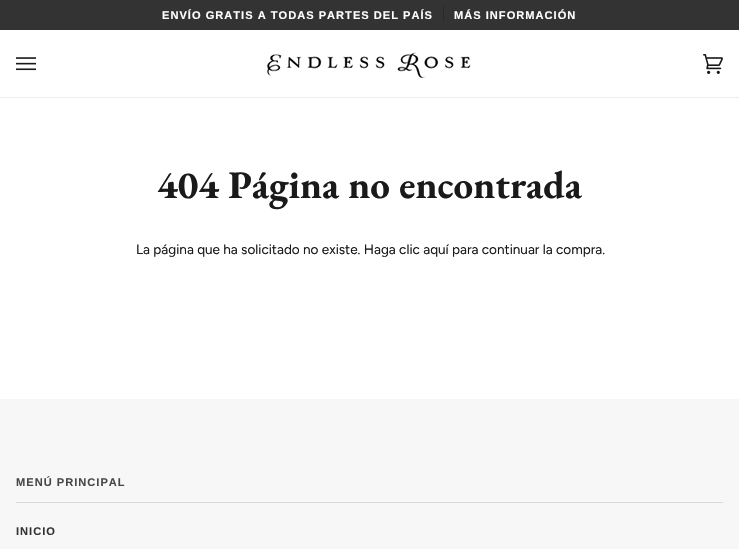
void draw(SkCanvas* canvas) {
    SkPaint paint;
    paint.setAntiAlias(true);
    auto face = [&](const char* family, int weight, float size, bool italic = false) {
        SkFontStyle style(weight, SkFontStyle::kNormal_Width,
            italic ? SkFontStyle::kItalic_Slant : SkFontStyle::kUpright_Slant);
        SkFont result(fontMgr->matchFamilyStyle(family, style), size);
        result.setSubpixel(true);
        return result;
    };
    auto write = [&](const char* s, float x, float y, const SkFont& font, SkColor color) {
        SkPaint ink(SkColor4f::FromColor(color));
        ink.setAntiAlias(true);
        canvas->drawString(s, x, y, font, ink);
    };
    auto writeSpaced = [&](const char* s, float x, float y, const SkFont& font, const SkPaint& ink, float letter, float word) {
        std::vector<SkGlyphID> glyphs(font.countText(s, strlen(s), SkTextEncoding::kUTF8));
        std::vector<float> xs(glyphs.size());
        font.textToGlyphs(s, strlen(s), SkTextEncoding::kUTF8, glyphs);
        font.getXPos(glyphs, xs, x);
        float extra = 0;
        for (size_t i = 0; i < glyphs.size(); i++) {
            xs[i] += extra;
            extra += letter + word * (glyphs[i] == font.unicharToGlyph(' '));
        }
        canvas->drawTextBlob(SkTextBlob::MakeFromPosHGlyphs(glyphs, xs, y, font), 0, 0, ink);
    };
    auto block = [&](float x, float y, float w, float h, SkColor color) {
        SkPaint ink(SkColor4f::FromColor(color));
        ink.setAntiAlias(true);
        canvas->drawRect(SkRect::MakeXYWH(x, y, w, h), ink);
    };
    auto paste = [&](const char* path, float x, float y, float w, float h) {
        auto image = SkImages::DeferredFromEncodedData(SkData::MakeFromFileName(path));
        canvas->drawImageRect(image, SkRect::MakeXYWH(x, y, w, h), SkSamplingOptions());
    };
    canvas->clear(SK_ColorWHITE);
    block(0, 0, 739, 30, SkColorSetRGB(51, 51, 51));
    auto kFont1 = face("Arimo", 700, 11.1f);
    paint.setColor(SK_ColorWHITE);
    writeSpaced("ENVÍO GRATIS A TODAS PARTES DEL PAÍS", 162, 19, kFont1, paint, 1, 0);
    block(443, 6, 1, 16, SkColorSetRGB(41, 41, 41));
    writeSpaced("MÁS INFORMACIÓN", 454, 19, kFont1, paint, 1, 0);
    block(0, 97, 739, 1, SkColorSetRGB(237, 237, 237));
    paste("pic1.png", 16, 57, 20, 14);
    paste("pic2.png", 267, 52, 204, 27);
    paste("pic3.png", 703, 54, 20, 20);
    auto kFont2 = face("EB Garamond", 700, 39);
    write("404 Página no encontrada", 157, 198, kFont2, SkColorSetRGB(26, 26, 26));
    auto kFont3 = face("Figtree", 400, 13.55f);
    write("La página que ha solicitado no existe. Haga clic aquí para continuar la compra.", 136, 254, kFont3, SkColorSetRGB(26, 26, 26));
    block(0, 399, 739, 150, SkColorSetRGB(247, 247, 247));
    paint.setColor(SkColorSetRGB(71, 71, 71));
    writeSpaced("MENÚ PRINCIPAL", 16, 486, kFont1, paint, 1, 0);
    block(16, 502, 707, 1, SkColorSetRGB(218, 218, 218));
    paint.setColor(SkColorSetRGB(51, 51, 51));
    writeSpaced("INICIO", 16, 535, kFont1, paint, 1, 0);
}
